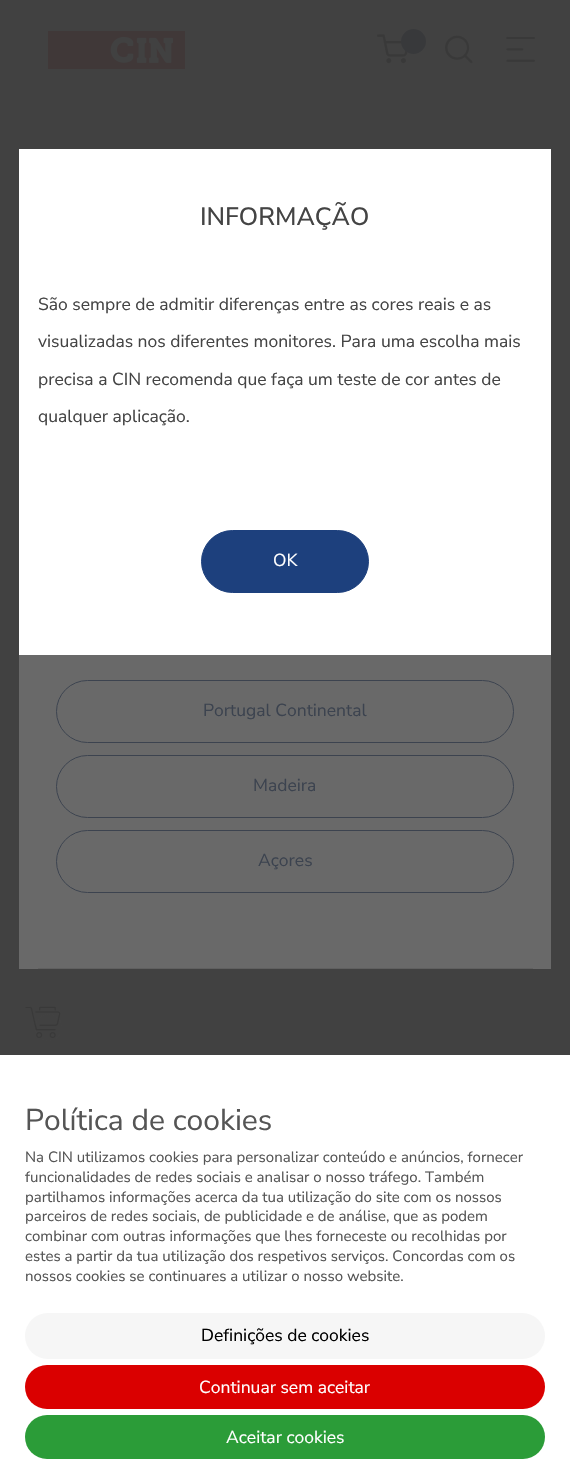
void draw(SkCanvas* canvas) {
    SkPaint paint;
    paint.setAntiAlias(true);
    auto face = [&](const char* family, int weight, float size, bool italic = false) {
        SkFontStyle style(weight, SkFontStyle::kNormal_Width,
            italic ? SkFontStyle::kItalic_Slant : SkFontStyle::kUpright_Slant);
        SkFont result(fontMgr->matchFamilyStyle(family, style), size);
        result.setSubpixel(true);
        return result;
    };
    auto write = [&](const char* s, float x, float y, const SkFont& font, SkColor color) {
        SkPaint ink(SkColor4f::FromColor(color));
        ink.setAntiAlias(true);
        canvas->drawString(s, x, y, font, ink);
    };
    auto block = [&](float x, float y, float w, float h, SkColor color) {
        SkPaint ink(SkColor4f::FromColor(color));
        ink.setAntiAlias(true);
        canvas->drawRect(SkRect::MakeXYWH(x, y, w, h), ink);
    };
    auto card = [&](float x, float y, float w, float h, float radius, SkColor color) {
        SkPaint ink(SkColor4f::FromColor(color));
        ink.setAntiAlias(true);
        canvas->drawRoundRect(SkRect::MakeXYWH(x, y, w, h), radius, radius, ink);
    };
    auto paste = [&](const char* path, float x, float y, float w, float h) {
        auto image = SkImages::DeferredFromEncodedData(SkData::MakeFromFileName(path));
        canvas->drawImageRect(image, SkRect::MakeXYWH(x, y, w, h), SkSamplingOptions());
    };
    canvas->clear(SkColorSetRGB(65, 65, 65));
    paste("pic1.png", 48, 31, 137, 38);
    paste("pic2.png", 376, 34, 32, 30);
    paint.setColor(SkColorSetRGB(56, 57, 59));
    canvas->drawCircle(413.5f, 41.5f, 12.5f, paint);
    paste("pic3.png", 445, 35, 28, 29);
    paste("pic4.png", 506, 36, 29, 26);
    block(19, 149, 532, 506, SK_ColorWHITE);
    auto kFont1 = face("Nunito Sans", 500, 25);
    write("INFORMAÇÃO", 200, 225, kFont1, SkColorSetRGB(68, 68, 68));
    auto kFont2 = face("Nunito Sans", 400, 17.5f);
    write("São sempre de admitir diferenças entre as cores reais e as", 38, 310, kFont2, SkColorSetRGB(68, 68, 68));
    write("visualizadas nos diferentes monitores. Para uma escolha mais", 38, 347, kFont2, SkColorSetRGB(68, 68, 68));
    write("precisa a CIN recomenda que faça um teste de cor antes de", 38, 385, kFont2, SkColorSetRGB(68, 68, 68));
    write("qualquer aplicação.", 38, 422, kFont2, SkColorSetRGB(68, 68, 68));
    paint.setColor(SkColorSetRGB(29, 64, 125));
    canvas->drawRoundRect(SkRect::MakeXYWH(201.5f, 530.5f, 167, 62), 31, 31, paint);
    paint.setStyle(SkPaint::kStroke_Style);
    paint.setStrokeWidth(1);
    canvas->drawRoundRect(SkRect::MakeXYWH(201.5f, 530.5f, 167, 62), 31, 31, paint);
    write("OK", 273, 566, kFont2, SK_ColorWHITE);
    block(19, 655, 532, 314, SkColorSetRGB(105, 105, 105));
    block(38, 968, 495, 1, SkColorSetRGB(95, 95, 95));
    paint.setColor(SkColorSetRGB(60, 67, 79));
    canvas->drawRoundRect(SkRect::MakeXYWH(56.5f, 680.5f, 457, 62), 31, 31, paint);
    write("Portugal Continental", 203, 716, kFont2, SkColorSetRGB(60, 67, 79));
    canvas->drawRoundRect(SkRect::MakeXYWH(56.5f, 755.5f, 457, 62), 31, 31, paint);
    write("Madeira", 253, 791, kFont2, SkColorSetRGB(60, 67, 79));
    canvas->drawRoundRect(SkRect::MakeXYWH(56.5f, 830.5f, 457, 62), 31, 31, paint);
    write("Açores", 258, 866, kFont2, SkColorSetRGB(60, 67, 79));
    paste("pic5.png", 25, 1006, 37, 35);
    block(0, 1055, 570, 428, SK_ColorWHITE);
    auto kFont3 = face("Nunito Sans", 400, 30);
    write("Política de cookies", 25, 1130, kFont3, SkColorSetRGB(85, 85, 85));
    auto kFont4 = face("Nunito Sans", 400, 15);
    write("Na CIN utilizamos cookies para personalizar conteúdo e anúncios, fornecer", 25, 1162, kFont4, SkColorSetRGB(85, 85, 85));
    write("funcionalidades de redes sociais e analisar o nosso tráfego. Também", 25, 1182, kFont4, SkColorSetRGB(85, 85, 85));
    write("partilhamos informações acerca da tua utilização do site com os nossos", 25, 1202, kFont4, SkColorSetRGB(85, 85, 85));
    write("parceiros de redes sociais, de publicidade e de análise, que as podem", 25, 1221, kFont4, SkColorSetRGB(85, 85, 85));
    write("combinar com outras informações que lhes forneceste ou recolhidas por", 25, 1241, kFont4, SkColorSetRGB(85, 85, 85));
    write("estes a partir da tua utilização dos respetivos serviços. Concordas com os", 25, 1261, kFont4, SkColorSetRGB(85, 85, 85));
    write("nossos cookies se continuares a utilizar o nosso website.", 25, 1281, kFont4, SkColorSetRGB(85, 85, 85));
    card(25, 1313, 520, 46, 23, SkColorSetRGB(246, 246, 246));
    write("Definições de cookies", 201, 1341, kFont2, SK_ColorBLACK);
    card(25, 1365, 520, 44, 22, SkColorSetRGB(218, 0, 0));
    write("Continuar sem aceitar", 199, 1393, kFont2, SK_ColorWHITE);
    card(25, 1415, 520, 44, 22, SkColorSetRGB(43, 156, 56));
    write("Aceitar cookies", 226, 1443, kFont2, SK_ColorWHITE);
}
